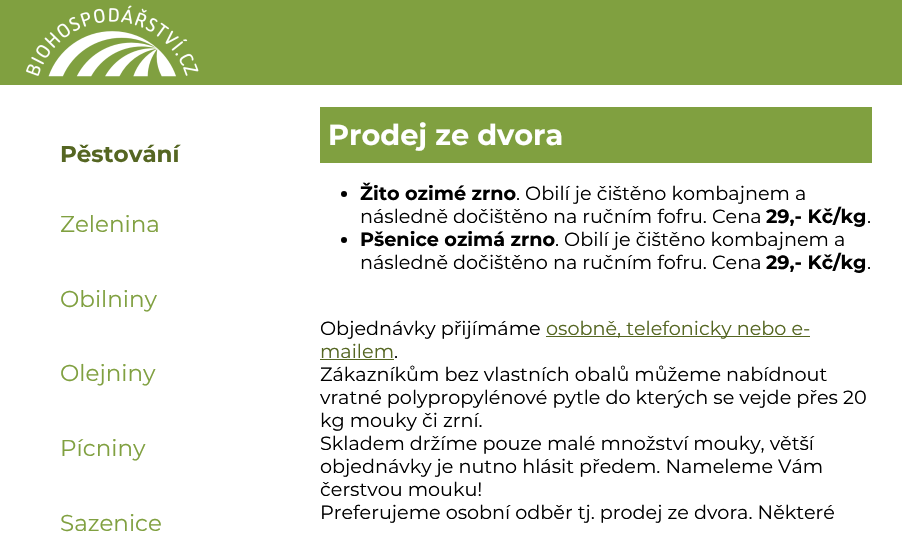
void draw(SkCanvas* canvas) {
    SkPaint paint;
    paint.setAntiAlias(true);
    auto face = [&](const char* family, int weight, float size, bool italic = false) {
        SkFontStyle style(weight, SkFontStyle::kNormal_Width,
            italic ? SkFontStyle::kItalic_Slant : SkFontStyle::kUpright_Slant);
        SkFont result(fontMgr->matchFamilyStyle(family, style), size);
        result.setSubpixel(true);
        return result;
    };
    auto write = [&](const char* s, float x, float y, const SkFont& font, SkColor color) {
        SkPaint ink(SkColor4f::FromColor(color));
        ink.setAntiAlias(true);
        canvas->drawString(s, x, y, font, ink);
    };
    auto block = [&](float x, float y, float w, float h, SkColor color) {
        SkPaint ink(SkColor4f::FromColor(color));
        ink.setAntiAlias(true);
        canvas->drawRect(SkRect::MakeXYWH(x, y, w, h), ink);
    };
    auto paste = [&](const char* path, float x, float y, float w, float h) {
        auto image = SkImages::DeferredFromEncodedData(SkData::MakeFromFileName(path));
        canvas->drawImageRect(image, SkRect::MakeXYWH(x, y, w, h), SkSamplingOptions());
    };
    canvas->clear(SK_ColorWHITE);
    block(0, 0, 902, 85, SkColorSetRGB(128, 160, 64));
    paste("pic1.png", 26, 5, 173, 72);
    auto kFont1 = face("Montserrat", 700, 23);
    write("Pěstování", 60, 162, kFont1, SkColorSetRGB(85, 102, 34));
    auto kFont2 = face("Montserrat", 400, 23);
    write("Zelenina", 60, 232, kFont2, SkColorSetRGB(128, 160, 64));
    write("Obilniny", 60, 307, kFont2, SkColorSetRGB(128, 160, 64));
    write("Olejniny", 60, 381, kFont2, SkColorSetRGB(128, 160, 64));
    write("Pícniny", 60, 456, kFont2, SkColorSetRGB(128, 160, 64));
    write("Sazenice", 60, 531, kFont2, SkColorSetRGB(128, 160, 64));
    block(320, 107, 552, 56, SkColorSetRGB(128, 160, 64));
    auto kFont3 = face("Montserrat", 700, 28.75f);
    write("Prodej ze dvora", 328, 145, kFont3, SK_ColorWHITE);
    paint.setColor(SK_ColorBLACK);
    canvas->drawCircle(344, 194, 3, paint);
    auto kFont4 = face("Montserrat", 700, 19.2f);
    write("Žito ozimé zrno", 360, 200, kFont4, SK_ColorBLACK);
    auto kFont5 = face("Montserrat", 400, 19.2f);
    write(". Obilí je čištěno kombajnem a", 516, 200, kFont5, SK_ColorBLACK);
    write("následně dočištěno na ručním fofru. Cena", 360, 223, kFont5, SK_ColorBLACK);
    write("29,- Kč/kg", 766, 223, kFont4, SK_ColorBLACK);
    write(".", 867, 223, kFont5, SK_ColorBLACK);
    canvas->drawCircle(344, 240, 3, paint);
    write("Pšenice ozimá zrno", 360, 246, kFont4, SK_ColorBLACK);
    write(". Obilí je čištěno kombajnem a", 555, 246, kFont5, SK_ColorBLACK);
    write("následně dočištěno na ručním fofru. Cena", 360, 269, kFont5, SK_ColorBLACK);
    write("29,- Kč/kg", 766, 269, kFont4, SK_ColorBLACK);
    write(".", 867, 269, kFont5, SK_ColorBLACK);
    write("Objednávky přijímáme", 320, 335, kFont5, SK_ColorBLACK);
    block(546, 336, 264, 1, SkColorSetRGB(85, 102, 34));
    write("osobně, telefonicky nebo e-", 546, 335, kFont5, SkColorSetRGB(85, 102, 34));
    write("mailem", 320, 358, kFont5, SkColorSetRGB(85, 102, 34));
    block(320, 359, 74, 1, SkColorSetRGB(85, 102, 34));
    write(".", 394, 358, kFont5, SK_ColorBLACK);
    write("Zákazníkům bez vlastních obalů můžeme nabídnout", 320, 381, kFont5, SK_ColorBLACK);
    write("vratné polypropylénové pytle do kterých se vejde přes 20", 320, 404, kFont5, SK_ColorBLACK);
    write("kg mouky či zrní.", 320, 427, kFont5, SK_ColorBLACK);
    write("Skladem držíme pouze malé množství mouky, větší", 320, 450, kFont5, SK_ColorBLACK);
    write("objednávky je nutno hlásit předem. Nameleme Vám", 320, 473, kFont5, SK_ColorBLACK);
    write("čerstvou mouku!", 320, 496, kFont5, SK_ColorBLACK);
    write("Preferujeme osobní odběr tj. prodej ze dvora. Některé", 320, 519, kFont5, SK_ColorBLACK);
}
